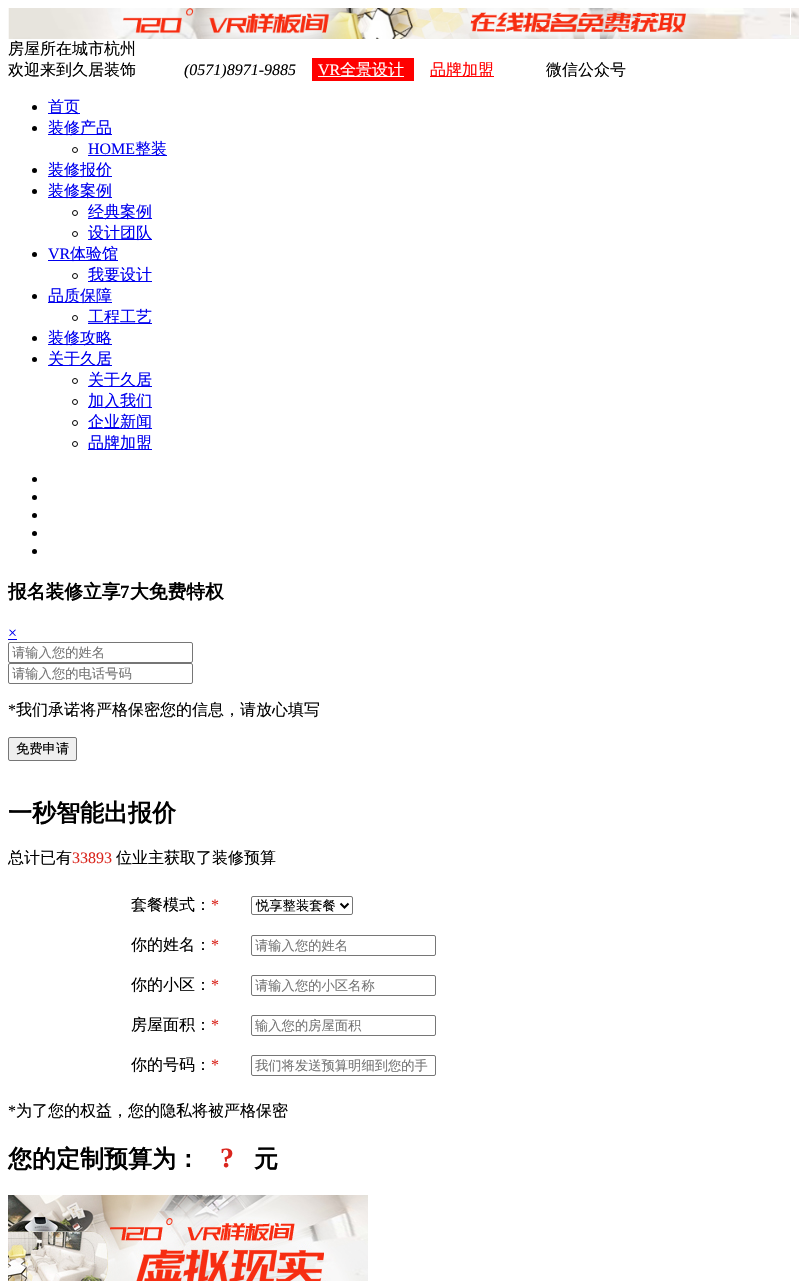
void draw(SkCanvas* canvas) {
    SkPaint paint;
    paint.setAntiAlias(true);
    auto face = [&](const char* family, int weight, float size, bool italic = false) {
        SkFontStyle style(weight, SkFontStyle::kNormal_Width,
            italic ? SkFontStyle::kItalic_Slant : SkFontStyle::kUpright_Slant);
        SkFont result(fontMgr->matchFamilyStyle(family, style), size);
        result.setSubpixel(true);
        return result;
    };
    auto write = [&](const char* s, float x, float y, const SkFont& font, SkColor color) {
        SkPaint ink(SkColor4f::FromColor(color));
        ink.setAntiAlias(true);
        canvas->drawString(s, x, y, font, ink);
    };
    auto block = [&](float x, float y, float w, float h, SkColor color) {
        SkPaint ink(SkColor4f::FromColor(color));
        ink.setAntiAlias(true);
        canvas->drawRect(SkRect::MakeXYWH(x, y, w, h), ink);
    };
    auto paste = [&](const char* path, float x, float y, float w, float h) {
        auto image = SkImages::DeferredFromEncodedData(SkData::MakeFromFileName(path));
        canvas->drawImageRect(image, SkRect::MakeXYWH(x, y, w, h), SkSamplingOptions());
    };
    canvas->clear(SK_ColorWHITE);
    paste("pic1.png", 8, 8, 791, 31);
    block(790, 5, 1, 30, SK_ColorWHITE);
    auto kFont1 = face("WenQuanYi Zen Hei", 500, 16);
    write("房屋所在城市杭州", 8, 54, kFont1, SK_ColorBLACK);
    write("欢迎来到久居装饰", 8, 75, kFont1, SK_ColorBLACK);
    auto kFont2 = face("Liberation Serif", 400, 16, true);
    write("(0571)8971-9885", 184, 75, kFont2, SK_ColorBLACK);
    block(312, 58, 102, 23, SkColorSetRGB(255, 0, 0));
    auto kFont3 = face("Liberation Serif", 400, 16);
    write("VR", 318, 75, kFont3, SK_ColorWHITE);
    block(318, 76, 86, 1, SK_ColorWHITE);
    write("全景设计", 340, 75, kFont1, SK_ColorWHITE);
    block(430, 76, 64, 1, SkColorSetRGB(255, 0, 0));
    write("品牌加盟", 430, 75, kFont1, SkColorSetRGB(255, 0, 0));
    write("微信公众号", 546, 75, kFont1, SK_ColorBLACK);
    paint.setColor(SK_ColorBLACK);
    canvas->drawCircle(34.5f, 107.5f, 2.5f, paint);
    block(48, 113, 32, 1, SkColorSetRGB(0, 0, 238));
    write("首页", 48, 112, kFont1, SkColorSetRGB(0, 0, 238));
    canvas->drawCircle(34.5f, 128.5f, 2.5f, paint);
    block(48, 134, 64, 1, SkColorSetRGB(0, 0, 238));
    write("装修产品", 48, 133, kFont1, SkColorSetRGB(0, 0, 238));
    paint.setStyle(SkPaint::kStroke_Style);
    paint.setStrokeWidth(1);
    canvas->drawCircle(75, 150, 2.5f, paint);
    write("HOME", 88, 154, kFont3, SkColorSetRGB(0, 0, 238));
    block(88, 155, 79, 1, SkColorSetRGB(0, 0, 238));
    write("整装", 135, 154, kFont1, SkColorSetRGB(0, 0, 238));
    paint.setStyle(SkPaint::kFill_Style);
    canvas->drawCircle(34.5f, 170.5f, 2.5f, paint);
    block(48, 176, 64, 1, SkColorSetRGB(0, 0, 238));
    write("装修报价", 48, 175, kFont1, SkColorSetRGB(0, 0, 238));
    canvas->drawCircle(34.5f, 191.5f, 2.5f, paint);
    block(48, 197, 64, 1, SkColorSetRGB(0, 0, 238));
    write("装修案例", 48, 196, kFont1, SkColorSetRGB(0, 0, 238));
    paint.setStyle(SkPaint::kStroke_Style);
    canvas->drawCircle(75, 213, 2.5f, paint);
    block(88, 218, 64, 1, SkColorSetRGB(0, 0, 238));
    write("经典案例", 88, 217, kFont1, SkColorSetRGB(0, 0, 238));
    canvas->drawCircle(75, 234, 2.5f, paint);
    block(88, 239, 64, 1, SkColorSetRGB(0, 0, 238));
    write("设计团队", 88, 238, kFont1, SkColorSetRGB(0, 0, 238));
    paint.setStyle(SkPaint::kFill_Style);
    canvas->drawCircle(34.5f, 254.5f, 2.5f, paint);
    write("VR", 48, 259, kFont3, SkColorSetRGB(0, 0, 238));
    block(48, 260, 70, 1, SkColorSetRGB(0, 0, 238));
    write("体验馆", 70, 259, kFont1, SkColorSetRGB(0, 0, 238));
    paint.setStyle(SkPaint::kStroke_Style);
    canvas->drawCircle(75, 276, 2.5f, paint);
    block(88, 281, 64, 1, SkColorSetRGB(0, 0, 238));
    write("我要设计", 88, 280, kFont1, SkColorSetRGB(0, 0, 238));
    paint.setStyle(SkPaint::kFill_Style);
    canvas->drawCircle(34.5f, 296.5f, 2.5f, paint);
    block(48, 302, 64, 1, SkColorSetRGB(0, 0, 238));
    write("品质保障", 48, 301, kFont1, SkColorSetRGB(0, 0, 238));
    paint.setStyle(SkPaint::kStroke_Style);
    canvas->drawCircle(75, 318, 2.5f, paint);
    block(88, 323, 64, 1, SkColorSetRGB(0, 0, 238));
    write("工程工艺", 88, 322, kFont1, SkColorSetRGB(0, 0, 238));
    paint.setStyle(SkPaint::kFill_Style);
    canvas->drawCircle(34.5f, 338.5f, 2.5f, paint);
    block(48, 344, 64, 1, SkColorSetRGB(0, 0, 238));
    write("装修攻略", 48, 343, kFont1, SkColorSetRGB(0, 0, 238));
    canvas->drawCircle(34.5f, 359.5f, 2.5f, paint);
    block(48, 365, 64, 1, SkColorSetRGB(0, 0, 238));
    write("关于久居", 48, 364, kFont1, SkColorSetRGB(0, 0, 238));
    paint.setStyle(SkPaint::kStroke_Style);
    canvas->drawCircle(75, 381, 2.5f, paint);
    block(88, 386, 64, 1, SkColorSetRGB(0, 0, 238));
    write("关于久居", 88, 385, kFont1, SkColorSetRGB(0, 0, 238));
    canvas->drawCircle(75, 402, 2.5f, paint);
    block(88, 407, 64, 1, SkColorSetRGB(0, 0, 238));
    write("加入我们", 88, 406, kFont1, SkColorSetRGB(0, 0, 238));
    canvas->drawCircle(75, 423, 2.5f, paint);
    block(88, 428, 64, 1, SkColorSetRGB(0, 0, 238));
    write("企业新闻", 88, 427, kFont1, SkColorSetRGB(0, 0, 238));
    canvas->drawCircle(75, 444, 2.5f, paint);
    block(88, 449, 64, 1, SkColorSetRGB(0, 0, 238));
    write("品牌加盟", 88, 448, kFont1, SkColorSetRGB(0, 0, 238));
    paint.setStyle(SkPaint::kFill_Style);
    canvas->drawCircle(34.5f, 479.5f, 2.5f, paint);
    canvas->drawCircle(34.5f, 497.5f, 2.5f, paint);
    canvas->drawCircle(34.5f, 515.5f, 2.5f, paint);
    canvas->drawCircle(34.5f, 533.5f, 2.5f, paint);
    canvas->drawCircle(34.5f, 551.5f, 2.5f, paint);
    auto kFont4 = face("WenQuanYi Zen Hei", 700, 18.75f);
    write("报名装修立享", 8, 598, kFont4, SK_ColorBLACK);
    auto kFont5 = face("Liberation Serif", 700, 18.75f);
    write("7", 120, 598, kFont5, SK_ColorBLACK);
    write("大免费特权", 130, 598, kFont4, SK_ColorBLACK);
    write("×", 8, 638, kFont3, SkColorSetRGB(0, 0, 238));
    block(8, 639, 9, 1, SkColorSetRGB(0, 0, 238));
    paint.setStyle(SkPaint::kStroke_Style);
    paint.setColor(SkColorSetRGB(118, 118, 118));
    canvas->drawRoundRect(SkRect::MakeXYWH(8.5f, 642.5f, 184, 20), 1.5f, 1.5f, paint);
    auto kFont6 = face("WenQuanYi Zen Hei", 500, 13.3f);
    write("请输入您的姓名", 12, 657, kFont6, SkColorSetRGB(117, 117, 117));
    canvas->drawRoundRect(SkRect::MakeXYWH(8.5f, 663.5f, 184, 20), 1.5f, 1.5f, paint);
    write("请输入您的电话号码", 12, 678, kFont6, SkColorSetRGB(117, 117, 117));
    write("*", 8, 715, kFont3, SK_ColorBLACK);
    write("我们承诺将严格保密您的信息，请放心填写", 16, 715, kFont1, SK_ColorBLACK);
    paint.setStyle(SkPaint::kFill_Style);
    paint.setColor(SkColorSetRGB(239, 239, 239));
    canvas->drawRoundRect(SkRect::MakeXYWH(8.5f, 737.5f, 68, 23), 1.5f, 1.5f, paint);
    paint.setStyle(SkPaint::kStroke_Style);
    paint.setColor(SkColorSetRGB(118, 118, 118));
    canvas->drawRoundRect(SkRect::MakeXYWH(8.5f, 737.5f, 68, 23), 1.5f, 1.5f, paint);
    write("免费申请", 16, 753, kFont6, SK_ColorBLACK);
    auto kFont7 = face("WenQuanYi Zen Hei", 700, 24);
    write("一秒智能出报价", 8, 821, kFont7, SK_ColorBLACK);
    write("总计已有", 8, 863, kFont1, SK_ColorBLACK);
    write("33893", 72, 863, kFont3, SkColorSetRGB(218, 37, 29));
    write("位业主获取了装修预算", 116, 863, kFont1, SK_ColorBLACK);
    write("套餐模式：", 131, 910, kFont1, SK_ColorBLACK);
    write("*", 211, 910, kFont3, SkColorSetRGB(218, 37, 29));
    canvas->drawRoundRect(SkRect::MakeXYWH(251.5f, 896.5f, 101, 18), 1.5f, 1.5f, paint);
    paint.setStrokeWidth(2);
    paint.setColor(SK_ColorBLACK);
    canvas->drawPath(SkPathBuilder().moveTo(340.5f, 903.5f).lineTo(344.5f, 907.5f).lineTo(348.5f, 903.5f).detach(), paint);
    write("悦享整装套餐", 256, 910, kFont6, SK_ColorBLACK);
    write("你的姓名：", 131, 950, kFont1, SK_ColorBLACK);
    write("*", 211, 950, kFont3, SkColorSetRGB(218, 37, 29));
    paint.setStrokeWidth(1);
    paint.setColor(SkColorSetRGB(118, 118, 118));
    canvas->drawRoundRect(SkRect::MakeXYWH(251.5f, 935.5f, 184, 20), 1.5f, 1.5f, paint);
    write("请输入您的姓名", 255, 950, kFont6, SkColorSetRGB(117, 117, 117));
    write("你的小区：", 131, 990, kFont1, SK_ColorBLACK);
    write("*", 211, 990, kFont3, SkColorSetRGB(218, 37, 29));
    canvas->drawRoundRect(SkRect::MakeXYWH(251.5f, 975.5f, 184, 20), 1.5f, 1.5f, paint);
    write("请输入您的小区名称", 255, 990, kFont6, SkColorSetRGB(117, 117, 117));
    write("房屋面积：", 131, 1030, kFont1, SK_ColorBLACK);
    write("*", 211, 1030, kFont3, SkColorSetRGB(218, 37, 29));
    canvas->drawRoundRect(SkRect::MakeXYWH(251.5f, 1015.5f, 184, 20), 1.5f, 1.5f, paint);
    write("输入您的房屋面积", 255, 1030, kFont6, SkColorSetRGB(117, 117, 117));
    write("你的号码：", 131, 1070, kFont1, SK_ColorBLACK);
    write("*", 211, 1070, kFont3, SkColorSetRGB(218, 37, 29));
    canvas->drawRoundRect(SkRect::MakeXYWH(251.5f, 1055.5f, 184, 20), 1.5f, 1.5f, paint);
    write("我们将发送预算明细到您的手", 255, 1070, kFont6, SkColorSetRGB(117, 117, 117));
    write("*", 8, 1116, kFont3, SK_ColorBLACK);
    write("为了您的权益，您的隐私将被严格保密", 16, 1116, kFont1, SK_ColorBLACK);
    write("您的定制预算为：", 8, 1167, kFont7, SK_ColorBLACK);
    auto kFont8 = face("Liberation Serif", 700, 28);
    write("?", 220, 1167, kFont8, SkColorSetRGB(218, 37, 29));
    write("元", 254, 1167, kFont7, SK_ColorBLACK);
    paste("pic2.png", 8, 1195, 360, 86);
}
